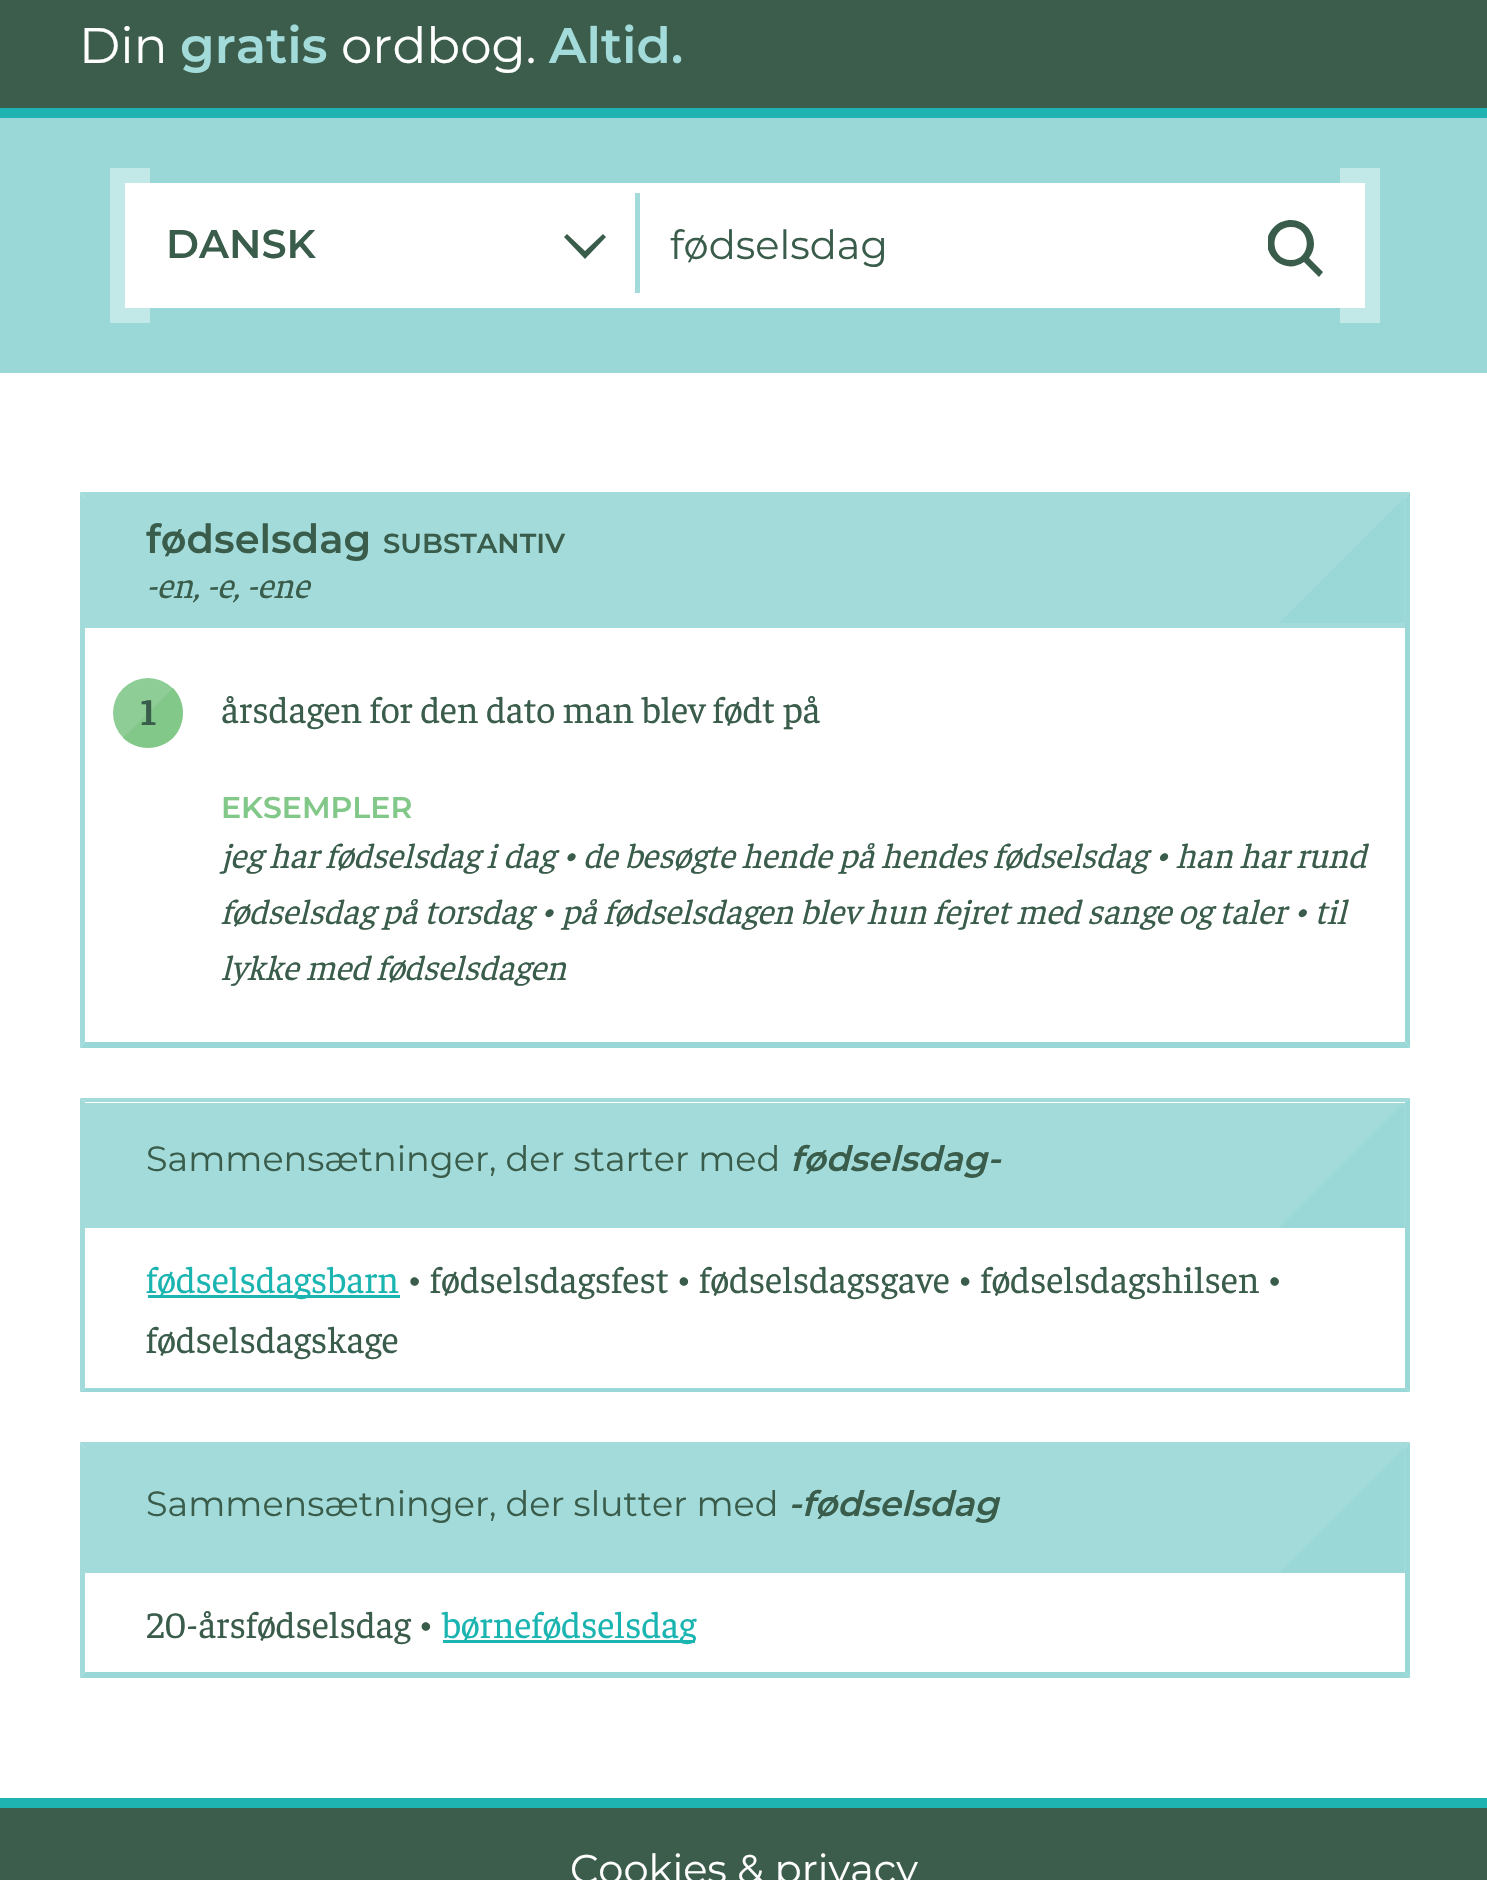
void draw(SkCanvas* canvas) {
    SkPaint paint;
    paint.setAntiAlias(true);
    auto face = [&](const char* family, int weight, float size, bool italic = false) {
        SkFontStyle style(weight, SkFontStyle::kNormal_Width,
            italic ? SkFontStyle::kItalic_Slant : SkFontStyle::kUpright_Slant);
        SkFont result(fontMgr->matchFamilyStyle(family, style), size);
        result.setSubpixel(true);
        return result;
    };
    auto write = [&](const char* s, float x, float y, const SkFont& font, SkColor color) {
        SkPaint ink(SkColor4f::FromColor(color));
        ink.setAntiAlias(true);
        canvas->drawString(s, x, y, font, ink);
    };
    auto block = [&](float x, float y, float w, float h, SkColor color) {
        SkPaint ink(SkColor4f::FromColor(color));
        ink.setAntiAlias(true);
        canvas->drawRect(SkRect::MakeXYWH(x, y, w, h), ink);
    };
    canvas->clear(SK_ColorWHITE);
    block(0, 0, 1487, 108, SkColorSetRGB(60, 93, 76));
    block(0, 108, 1487, 10, SkColorSetRGB(30, 179, 176));
    auto kFont1 = face("Montserrat", 400, 50);
    write("Din", 79, 63, kFont1, SK_ColorWHITE);
    auto kFont2 = face("Montserrat", 600, 50);
    write("gratis", 180, 63, kFont2, SkColorSetRGB(163, 219, 219));
    write("ordbog.", 341, 63, kFont1, SK_ColorWHITE);
    write("Altid.", 549, 63, kFont2, SkColorSetRGB(163, 219, 219));
    block(0, 118, 1487, 255, SkColorSetRGB(153, 216, 215));
    block(1340, 168, 40, 155, SkColorSetRGB(194, 232, 231));
    block(110, 168, 40, 155, SkColorSetRGB(194, 232, 231));
    block(125, 183, 1240, 125, SK_ColorWHITE);
    auto kFont3 = face("Montserrat", 600, 40);
    write("DANSK", 166, 258, kFont3, SkColorSetRGB(58, 93, 75));
    paint.setColor(SkColorSetRGB(58, 93, 75));
    canvas->drawPath(SkPathBuilder().moveTo(606, 237).lineTo(585, 259).lineTo(564, 237).lineTo(567, 234).lineTo(585, 251).lineTo(603, 234).close().detach(), paint);
    block(635, 193, 5, 100, SkColorSetRGB(163, 219, 219));
    auto kFont4 = face("Montserrat", 400, 40);
    write("fødselsdag", 670, 259, kFont4, SkColorSetRGB(58, 93, 75));
    canvas->save();
    canvas->clipRect(SkRect::MakeXYWH(1268, 220, 57, 58));
    canvas->drawPath(SkPathBuilder().moveTo(1291, 220).cubicTo(1310, 220, 1321, 243, 1309, 258).lineTo(1323, 272).lineTo(1319, 277).lineTo(1304, 262).cubicTo(1281, 278, 1254, 247, 1274, 227).cubicTo(1279, 222, 1285, 220, 1291, 220).close().moveTo(1291, 227).cubicTo(1269, 227, 1269, 260, 1291, 260).cubicTo(1312, 260, 1312, 227, 1291, 227).close().detach(), paint);
    canvas->restore();
    paint.setColor(SkColorSetRGB(163, 219, 219));
    canvas->drawPath(SkPathBuilder().moveTo(80, 492).lineTo(1410, 492).lineTo(1405, 498).lineTo(85, 498).close().detach(), paint);
    paint.setColor(SkColorSetRGB(153, 216, 215));
    canvas->drawPath(SkPathBuilder().moveTo(1410, 492).lineTo(1410, 1048).lineTo(1405, 1042).lineTo(1405, 498).close().detach(), paint);
    canvas->drawPath(SkPathBuilder().moveTo(1410, 1048).lineTo(80, 1048).lineTo(85, 1042).lineTo(1405, 1042).close().detach(), paint);
    paint.setColor(SkColorSetRGB(163, 219, 219));
    canvas->drawPath(SkPathBuilder().moveTo(80, 1048).lineTo(80, 492).lineTo(85, 498).lineTo(85, 1042).close().detach(), paint);
    block(85, 498, 1320, 130, SkColorSetRGB(163, 219, 219));
    write("fødselsdag", 146, 553, kFont3, SkColorSetRGB(58, 93, 75));
    auto kFont5 = face("Montserrat", 600, 27.5f);
    write("SUBSTANTIV", 383, 553, kFont5, SkColorSetRGB(58, 93, 75));
    canvas->save();
    canvas->clipRect(SkRect::MakeXYWH(85, 498, 1320, 125));
    paint.setColor(SkColorSetRGB(153, 216, 215));
    canvas->drawPath(SkPathBuilder().moveTo(84, 1818).lineTo(1404, 498).lineTo(1404, 623).lineTo(84, 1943).close().detach(), paint);
    canvas->restore();
    auto kFont6 = face("Faustina", 400, 35, true);
    write("-en, -e, -ene", 146, 598, kFont6, SkColorSetRGB(58, 93, 75));
    paint.setColor(SkColorSetRGB(142, 205, 149));
    canvas->drawCircle(148, 713, 35, paint);
    paint.setColor(SkColorSetRGB(130, 200, 137));
    canvas->drawPath(SkPathBuilder().moveTo(173, 688).cubicTo(186, 702, 186, 724, 173, 738).cubicTo(159, 751, 137, 751, 123, 738).close().detach(), paint);
    auto kFont7 = face("Faustina", 700, 37.5f);
    write("1", 140, 725, kFont7, SkColorSetRGB(58, 93, 75));
    auto kFont8 = face("Faustina", 400, 37.5f);
    write("årsdagen for den dato man blev født på", 221, 723, kFont8, SkColorSetRGB(58, 93, 75));
    auto kFont9 = face("Montserrat", 600, 30);
    write("EKSEMPLER", 221, 818, kFont9, SkColorSetRGB(130, 200, 137));
    write("jeg har fødselsdag i dag • de besøgte hende på hendes fødselsdag • han har rund", 221, 868, kFont6, SkColorSetRGB(58, 93, 75));
    write("fødselsdag på torsdag • på fødselsdagen blev hun fejret med sange og taler • til", 221, 924, kFont6, SkColorSetRGB(58, 93, 75));
    write("lykke med fødselsdagen", 221, 980, kFont6, SkColorSetRGB(58, 93, 75));
    paint.setColor(SkColorSetRGB(163, 219, 219));
    canvas->drawPath(SkPathBuilder().moveTo(80, 1098).lineTo(1410, 1098).lineTo(1405, 1102).lineTo(85, 1102).close().detach(), paint);
    paint.setColor(SkColorSetRGB(153, 216, 215));
    canvas->drawPath(SkPathBuilder().moveTo(1410, 1098).lineTo(1410, 1392).lineTo(1405, 1388).lineTo(1405, 1102).close().detach(), paint);
    canvas->drawPath(SkPathBuilder().moveTo(1410, 1392).lineTo(80, 1392).lineTo(85, 1388).lineTo(1405, 1388).close().detach(), paint);
    paint.setColor(SkColorSetRGB(163, 219, 219));
    canvas->drawPath(SkPathBuilder().moveTo(80, 1392).lineTo(80, 1098).lineTo(85, 1102).lineTo(85, 1388).close().detach(), paint);
    block(85, 1103, 1320, 125, SkColorSetRGB(163, 219, 219));
    auto kFont10 = face("Montserrat", 400, 35);
    write("Sammensætninger, der starter med", 146, 1171, kFont10, SkColorSetRGB(58, 93, 75));
    auto kFont11 = face("Montserrat", 600, 35, true);
    write("fødselsdag-", 790, 1171, kFont11, SkColorSetRGB(58, 93, 75));
    canvas->save();
    canvas->clipRect(SkRect::MakeXYWH(85, 1103, 1320, 125));
    paint.setColor(SkColorSetRGB(153, 216, 215));
    canvas->drawPath(SkPathBuilder().moveTo(84, 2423).lineTo(1404, 1103).lineTo(1404, 1228).lineTo(84, 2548).close().detach(), paint);
    canvas->restore();
    block(148, 1295, 252, 3, SkColorSetRGB(26, 180, 177));
    write("fødselsdagsbarn", 146, 1293, kFont8, SkColorSetRGB(26, 180, 177));
    write("• fødselsdagsfest • fødselsdagsgave • fødselsdagshilsen •", 407, 1293, kFont8, SkColorSetRGB(58, 93, 75));
    write("fødselsdagskage", 146, 1353, kFont8, SkColorSetRGB(58, 93, 75));
    paint.setColor(SkColorSetRGB(163, 219, 219));
    canvas->drawPath(SkPathBuilder().moveTo(80, 1442).lineTo(1410, 1442).lineTo(1405, 1448).lineTo(85, 1448).close().detach(), paint);
    paint.setColor(SkColorSetRGB(153, 216, 215));
    canvas->drawPath(SkPathBuilder().moveTo(1410, 1442).lineTo(1410, 1678).lineTo(1405, 1672).lineTo(1405, 1448).close().detach(), paint);
    canvas->drawPath(SkPathBuilder().moveTo(1410, 1678).lineTo(80, 1678).lineTo(85, 1672).lineTo(1405, 1672).close().detach(), paint);
    paint.setColor(SkColorSetRGB(163, 219, 219));
    canvas->drawPath(SkPathBuilder().moveTo(80, 1678).lineTo(80, 1442).lineTo(85, 1448).lineTo(85, 1672).close().detach(), paint);
    block(85, 1448, 1320, 125, SkColorSetRGB(163, 219, 219));
    write("Sammensætninger, der slutter med", 146, 1516, kFont10, SkColorSetRGB(58, 93, 75));
    write("-fødselsdag", 788, 1516, kFont11, SkColorSetRGB(58, 93, 75));
    canvas->save();
    canvas->clipRect(SkRect::MakeXYWH(85, 1448, 1320, 125));
    paint.setColor(SkColorSetRGB(153, 216, 215));
    canvas->drawPath(SkPathBuilder().moveTo(84, 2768).lineTo(1404, 1448).lineTo(1404, 1573).lineTo(84, 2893).close().detach(), paint);
    canvas->restore();
    write("20-årsfødselsdag •", 146, 1638, kFont8, SkColorSetRGB(58, 93, 75));
    block(443, 1640, 252, 3, SkColorSetRGB(26, 180, 177));
    write("børnefødselsdag", 442, 1638, kFont8, SkColorSetRGB(26, 180, 177));
    block(0, 1808, 1487, 72, SkColorSetRGB(60, 93, 76));
    block(0, 1798, 1487, 10, SkColorSetRGB(30, 179, 176));
    write("Cookies & privacy", 570, 1883, kFont4, SK_ColorWHITE);
}
